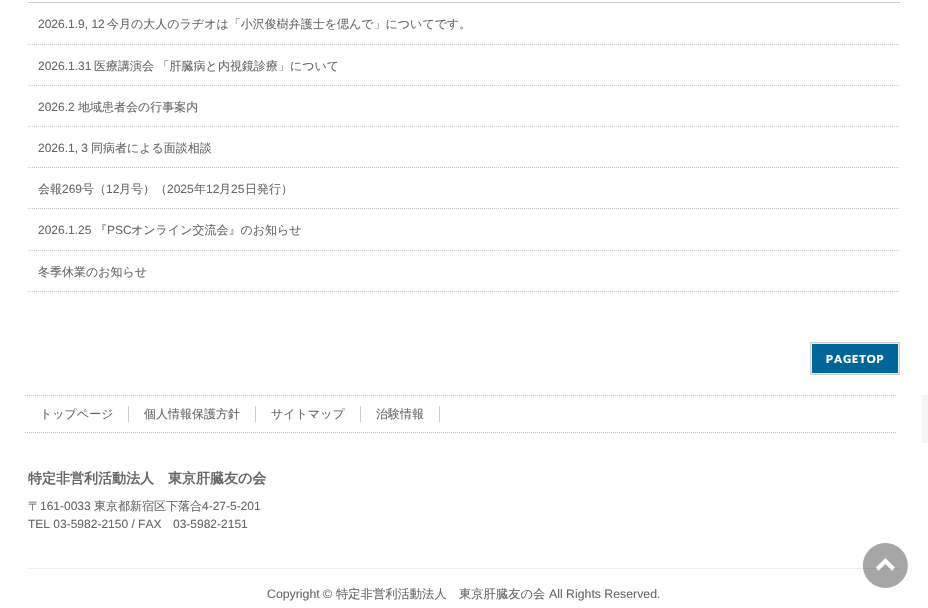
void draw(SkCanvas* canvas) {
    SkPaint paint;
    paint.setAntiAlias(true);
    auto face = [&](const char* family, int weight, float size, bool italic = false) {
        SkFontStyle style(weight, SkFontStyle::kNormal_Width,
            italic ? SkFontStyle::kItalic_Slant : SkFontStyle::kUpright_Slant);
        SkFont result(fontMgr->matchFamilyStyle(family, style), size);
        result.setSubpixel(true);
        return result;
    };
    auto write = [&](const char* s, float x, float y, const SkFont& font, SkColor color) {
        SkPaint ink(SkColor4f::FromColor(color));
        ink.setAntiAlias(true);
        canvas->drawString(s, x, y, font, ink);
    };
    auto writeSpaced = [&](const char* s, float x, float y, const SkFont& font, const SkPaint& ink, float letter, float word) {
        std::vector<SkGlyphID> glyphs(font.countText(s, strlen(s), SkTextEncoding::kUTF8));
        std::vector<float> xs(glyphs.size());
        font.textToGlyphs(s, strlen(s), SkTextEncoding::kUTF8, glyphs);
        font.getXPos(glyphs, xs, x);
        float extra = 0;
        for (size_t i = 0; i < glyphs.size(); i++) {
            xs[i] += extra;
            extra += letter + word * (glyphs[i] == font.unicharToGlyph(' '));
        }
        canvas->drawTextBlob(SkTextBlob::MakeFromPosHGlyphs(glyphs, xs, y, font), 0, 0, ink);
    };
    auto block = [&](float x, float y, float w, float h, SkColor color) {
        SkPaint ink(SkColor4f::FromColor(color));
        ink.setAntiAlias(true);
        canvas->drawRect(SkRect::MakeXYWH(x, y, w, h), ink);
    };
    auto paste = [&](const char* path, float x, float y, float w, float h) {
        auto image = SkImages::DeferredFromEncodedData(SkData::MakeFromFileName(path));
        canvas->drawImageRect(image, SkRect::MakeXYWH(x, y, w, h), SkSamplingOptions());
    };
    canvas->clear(SkColorSetRGB(245, 245, 245));
    block(0, 0, 928, 395, SK_ColorWHITE);
    block(28, 2, 872, 1, SkColorSetRGB(204, 204, 204));
    paint.setStyle(SkPaint::kStroke_Style);
    paint.setStrokeWidth(1);
    paint.setColor(SkColorSetRGB(204, 204, 204));
    paint.setPathEffect(SkDashPathEffect::Make({{1, 1}}, 0));
    canvas->drawPath(SkPathBuilder().moveTo(28, 44.5f).lineTo(900, 44.5f).detach(), paint);
    paint.setPathEffect(nullptr);
    auto kFont1 = face("Liberation Sans", 400, 12);
    write("2026.1.9, 12", 38, 28, kFont1, SkColorSetRGB(102, 102, 102));
    auto kFont2 = face("WenQuanYi Zen Hei", 500, 12);
    write("今月の大人のラヂオは「小沢俊樹弁護士を偲んで」についてです。", 107, 28, kFont2, SkColorSetRGB(102, 102, 102));
    paint.setPathEffect(SkDashPathEffect::Make({{1, 1}}, 0));
    canvas->drawPath(SkPathBuilder().moveTo(28, 85.5f).lineTo(900, 85.5f).detach(), paint);
    paint.setPathEffect(nullptr);
    write("2026.1.31", 38, 70, kFont1, SkColorSetRGB(102, 102, 102));
    write("医療講演会 「肝臓病と内視鏡診療」について", 94, 70, kFont2, SkColorSetRGB(102, 102, 102));
    paint.setPathEffect(SkDashPathEffect::Make({{1, 1}}, 0));
    canvas->drawPath(SkPathBuilder().moveTo(28, 126.5f).lineTo(900, 126.5f).detach(), paint);
    paint.setPathEffect(nullptr);
    write("2026.2", 38, 111, kFont1, SkColorSetRGB(102, 102, 102));
    write("地域患者会の行事案内", 78, 111, kFont2, SkColorSetRGB(102, 102, 102));
    paint.setPathEffect(SkDashPathEffect::Make({{1, 1}}, 0));
    canvas->drawPath(SkPathBuilder().moveTo(28, 167.5f).lineTo(900, 167.5f).detach(), paint);
    paint.setPathEffect(nullptr);
    write("2026.1, 3", 38, 152, kFont1, SkColorSetRGB(102, 102, 102));
    write("同病者による面談相談", 91, 152, kFont2, SkColorSetRGB(102, 102, 102));
    paint.setPathEffect(SkDashPathEffect::Make({{1, 1}}, 0));
    canvas->drawPath(SkPathBuilder().moveTo(28, 208.5f).lineTo(900, 208.5f).detach(), paint);
    paint.setPathEffect(nullptr);
    write("会報", 38, 193, kFont2, SkColorSetRGB(102, 102, 102));
    write("269", 62, 193, kFont1, SkColorSetRGB(102, 102, 102));
    write("号（", 82, 193, kFont2, SkColorSetRGB(102, 102, 102));
    write("12", 106, 193, kFont1, SkColorSetRGB(102, 102, 102));
    write("月号）（", 119, 193, kFont2, SkColorSetRGB(102, 102, 102));
    write("2025", 167, 193, kFont1, SkColorSetRGB(102, 102, 102));
    write("年", 194, 193, kFont2, SkColorSetRGB(102, 102, 102));
    write("12", 206, 193, kFont1, SkColorSetRGB(102, 102, 102));
    write("月", 219, 193, kFont2, SkColorSetRGB(102, 102, 102));
    write("25", 231, 193, kFont1, SkColorSetRGB(102, 102, 102));
    write("日発行）", 245, 193, kFont2, SkColorSetRGB(102, 102, 102));
    paint.setPathEffect(SkDashPathEffect::Make({{1, 1}}, 0));
    canvas->drawPath(SkPathBuilder().moveTo(28, 250.5f).lineTo(900, 250.5f).detach(), paint);
    paint.setPathEffect(nullptr);
    write("2026.1.25", 38, 234, kFont1, SkColorSetRGB(102, 102, 102));
    write("『", 95, 234, kFont2, SkColorSetRGB(102, 102, 102));
    write("PSC", 107, 234, kFont1, SkColorSetRGB(102, 102, 102));
    write("オンライン交流会』のお知らせ", 131, 234, kFont2, SkColorSetRGB(102, 102, 102));
    paint.setPathEffect(SkDashPathEffect::Make({{1, 1}}, 0));
    canvas->drawPath(SkPathBuilder().moveTo(28, 291.5f).lineTo(900, 291.5f).detach(), paint);
    paint.setPathEffect(nullptr);
    write("冬季休業のお知らせ", 38, 276, kFont2, SkColorSetRGB(102, 102, 102));
    paint.setStyle(SkPaint::kFill_Style);
    paint.setColor(SkColorSetRGB(0, 102, 153));
    canvas->drawRect(SkRect::MakeXYWH(811.5f, 343.5f, 87, 30), paint);
    paint.setStyle(SkPaint::kStroke_Style);
    paint.setColor(SkColorSetRGB(230, 240, 245));
    canvas->drawRect(SkRect::MakeXYWH(811.5f, 343.5f, 87, 30), paint);
    paint.setColor(SkColorSetRGB(204, 204, 204));
    canvas->drawRect(SkRect::MakeXYWH(810.5f, 342.5f, 89, 32), paint);
    auto kFont3 = face("Lato", 900, 11);
    paint.setStyle(SkPaint::kFill_Style);
    paint.setColor(SK_ColorWHITE);
    writeSpaced("PAGETOP", 826, 363, kFont3, paint, 1, 0);
    block(0, 395, 922, 48, SK_ColorWHITE);
    paint.setStyle(SkPaint::kStroke_Style);
    paint.setColor(SkColorSetRGB(204, 204, 204));
    paint.setPathEffect(SkDashPathEffect::Make({{1, 1}}, 0));
    canvas->drawPath(SkPathBuilder().moveTo(25, 395.5f).lineTo(897, 395.5f).detach(), paint);
    paint.setPathEffect(nullptr);
    paint.setPathEffect(SkDashPathEffect::Make({{1, 1}}, 0));
    canvas->drawPath(SkPathBuilder().moveTo(25, 432.5f).lineTo(897, 432.5f).detach(), paint);
    paint.setPathEffect(nullptr);
    block(128, 406, 1, 16, SkColorSetRGB(204, 204, 204));
    write("トップページ", 40, 418, kFont2, SkColorSetRGB(102, 102, 102));
    block(255, 406, 1, 16, SkColorSetRGB(204, 204, 204));
    write("個人情報保護方針", 144, 418, kFont2, SkColorSetRGB(102, 102, 102));
    block(360, 406, 1, 16, SkColorSetRGB(204, 204, 204));
    write("サイトマップ", 271, 418, kFont2, SkColorSetRGB(102, 102, 102));
    block(439, 406, 1, 16, SkColorSetRGB(204, 204, 204));
    write("治験情報", 376, 418, kFont2, SkColorSetRGB(102, 102, 102));
    block(0, 443, 928, 165, SK_ColorWHITE);
    auto kFont4 = face("WenQuanYi Zen Hei", 700, 14);
    write("特定非営利活動法人　東京肝臓友の会", 28, 483, kFont4, SkColorSetRGB(102, 102, 102));
    write("〒", 28, 510, kFont2, SkColorSetRGB(102, 102, 102));
    write("161-0033", 40, 510, kFont1, SkColorSetRGB(102, 102, 102));
    write("東京都新宿区下落合", 94, 510, kFont2, SkColorSetRGB(102, 102, 102));
    write("4-27-5-201", 202, 510, kFont1, SkColorSetRGB(102, 102, 102));
    write("TEL 03-5982-2150 / FAX", 28, 528, kFont1, SkColorSetRGB(102, 102, 102));
    write("03-5982-2151", 173, 528, kFont1, SkColorSetRGB(102, 102, 102));
    block(28, 568, 872, 1, SkColorSetRGB(239, 239, 239));
    auto kFont5 = face("Liberation Sans", 400, 12.3f);
    write("Copyright ©", 267, 598, kFont5, SkColorSetRGB(102, 102, 102));
    auto kFont6 = face("WenQuanYi Zen Hei", 500, 12.3f);
    write("特定非営利活動法人　東京肝臓友の会", 336, 598, kFont6, SkColorSetRGB(102, 102, 102));
    write("All Rights Reserved.", 549, 598, kFont5, SkColorSetRGB(102, 102, 102));
    paste("pic1.png", 863, 543, 45, 45);
}
